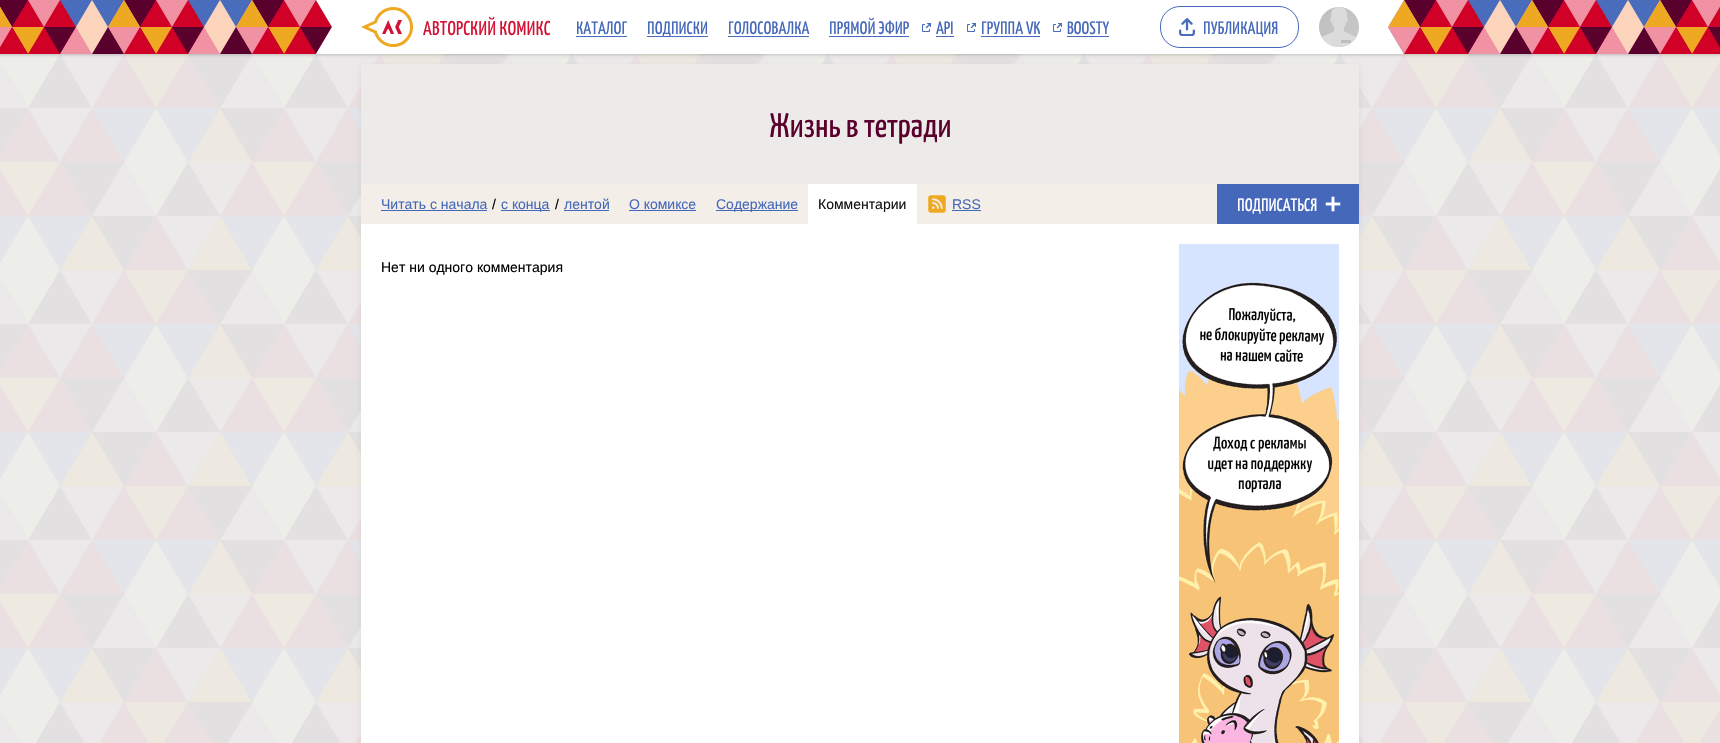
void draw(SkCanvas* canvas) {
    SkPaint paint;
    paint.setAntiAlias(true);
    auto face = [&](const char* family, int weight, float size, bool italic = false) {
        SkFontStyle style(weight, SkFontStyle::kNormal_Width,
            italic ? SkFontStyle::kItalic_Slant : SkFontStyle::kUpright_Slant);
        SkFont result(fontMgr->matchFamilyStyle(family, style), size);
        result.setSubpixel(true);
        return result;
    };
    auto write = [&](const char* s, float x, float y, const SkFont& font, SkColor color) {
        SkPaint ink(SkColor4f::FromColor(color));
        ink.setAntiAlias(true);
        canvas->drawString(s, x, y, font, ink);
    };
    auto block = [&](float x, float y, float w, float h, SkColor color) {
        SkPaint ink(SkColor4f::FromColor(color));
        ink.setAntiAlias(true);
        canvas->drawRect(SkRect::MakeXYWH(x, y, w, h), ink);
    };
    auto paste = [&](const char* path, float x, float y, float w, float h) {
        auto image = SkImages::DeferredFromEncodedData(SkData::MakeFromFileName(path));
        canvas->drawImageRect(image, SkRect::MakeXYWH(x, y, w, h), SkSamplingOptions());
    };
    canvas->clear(SK_ColorWHITE);
    paste("pic1.png", 0, 54, 1720, 689);
    paint.setColor(SkColorSetARGB(51, 0, 0, 0));
    paint.setMaskFilter(SkMaskFilter::MakeBlur(kNormal_SkBlurStyle, 1.5f));
    canvas->drawRect(SkRect::MakeXYWH(-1, -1, 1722, 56), paint);
    paint.setMaskFilter(nullptr);
    paste("pic2.png", 0, 0, 1720, 54);
    paint.setColor(SK_ColorWHITE);
    canvas->drawPath(SkPathBuilder().moveTo(316, 0).lineTo(1404, 0).lineTo(1388, 27).lineTo(1404, 54).lineTo(316, 54).lineTo(332, 27).close().detach(), paint);
    paste("pic3.png", 361, 7, 52, 40);
    auto kFont1 = face("Yanone Kaffeesatz", 400, 20);
    write("АВТОРСКИЙ КОМИКС", 423, 35, kFont1, SkColorSetRGB(211, 19, 53));
    auto kFont2 = face("Yanone Kaffeesatz", 400, 18);
    write("КАТАЛОГ", 576, 34, kFont2, SkColorSetRGB(69, 104, 186));
    block(576, 36, 51, 1, SkColorSetRGB(74, 108, 188));
    write("ПОДПИСКИ", 647, 34, kFont2, SkColorSetRGB(69, 104, 186));
    block(647, 36, 61, 1, SkColorSetRGB(74, 108, 188));
    write("ГОЛОСОВАЛКА", 728, 34, kFont2, SkColorSetRGB(69, 104, 186));
    block(728, 36, 81, 1, SkColorSetRGB(74, 108, 188));
    write("ПРЯМОЙ ЭФИР", 829, 34, kFont2, SkColorSetRGB(69, 104, 186));
    block(829, 36, 80, 1, SkColorSetRGB(74, 108, 188));
    paste("pic4.png", 922, 23, 9, 9);
    write("API", 936, 34, kFont2, SkColorSetRGB(69, 104, 186));
    block(936, 36, 18, 1, SkColorSetRGB(74, 108, 188));
    paste("pic4.png", 967, 23, 9, 9);
    write("ГРУППА VK", 981, 34, kFont2, SkColorSetRGB(69, 104, 186));
    block(981, 36, 59, 1, SkColorSetRGB(74, 108, 188));
    paste("pic4.png", 1053, 23, 9, 9);
    write("BOOSTY", 1067, 34, kFont2, SkColorSetRGB(69, 104, 186));
    block(1067, 36, 42, 1, SkColorSetRGB(74, 108, 188));
    paste("pic5.png", 1179, 18, 16, 18);
    paint.setStyle(SkPaint::kStroke_Style);
    paint.setStrokeWidth(1);
    paint.setColor(SkColorSetRGB(69, 104, 186));
    canvas->drawRoundRect(SkRect::MakeXYWH(1160.5f, 6.5f, 138, 41), 19.5f, 19.5f, paint);
    write("ПУБЛИКАЦИЯ", 1203, 34, kFont2, SkColorSetRGB(69, 104, 186));
    paste("pic6.png", 1319, 7, 40, 40);
    paint.setStyle(SkPaint::kFill_Style);
    paint.setColor(SkColorSetARGB(13, 0, 0, 0));
    paint.setMaskFilter(SkMaskFilter::MakeBlur(kNormal_SkBlurStyle, 3));
    canvas->drawRect(SkRect::MakeXYWH(360, 66, 1000, 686), paint);
    paint.setMaskFilter(nullptr);
    block(361, 224, 998, 519, SK_ColorWHITE);
    block(361, 64, 998, 120, SkColorSetRGB(237, 235, 233));
    auto kFont3 = face("Yanone Kaffeesatz", 400, 34);
    write("Жизнь в тетради", 769, 137, kFont3, SkColorSetRGB(90, 0, 45));
    block(361, 184, 856, 40, SkColorSetRGB(243, 238, 231));
    auto kFont4 = face("Liberation Sans", 400, 14);
    write("Читать с начала", 381, 209, kFont4, SkColorSetRGB(69, 104, 186));
    block(381, 210, 106, 1, SkColorSetRGB(69, 104, 186));
    write("/", 492, 209, kFont4, SK_ColorBLACK);
    block(501, 210, 49, 1, SkColorSetRGB(69, 104, 186));
    write("с конца", 501, 209, kFont4, SkColorSetRGB(69, 104, 186));
    write("/", 555, 209, kFont4, SK_ColorBLACK);
    write("лентой", 564, 209, kFont4, SkColorSetRGB(69, 104, 186));
    block(564, 210, 45, 1, SkColorSetRGB(69, 104, 186));
    write("О комиксе", 629, 209, kFont4, SkColorSetRGB(69, 104, 186));
    block(629, 210, 67, 1, SkColorSetRGB(69, 104, 186));
    block(716, 210, 82, 1, SkColorSetRGB(69, 104, 186));
    write("Содержание", 716, 209, kFont4, SkColorSetRGB(69, 104, 186));
    block(808, 184, 109, 40, SK_ColorWHITE);
    write("Комментарии", 818, 209, kFont4, SkColorSetRGB(17, 17, 17));
    paste("pic7.png", 928, 195, 18, 18);
    write("RSS", 952, 209, kFont4, SkColorSetRGB(69, 104, 186));
    block(952, 210, 29, 1, SkColorSetRGB(69, 104, 186));
    block(1217, 184, 142, 40, SkColorSetRGB(69, 104, 186));
    paste("pic8.png", 1325, 196, 16, 16);
    write("ПОДПИСАТЬСЯ", 1237, 211, kFont2, SK_ColorWHITE);
    write("Нет ни одного комментария", 381, 272, kFont4, SK_ColorBLACK);
    paste("pic9.png", 1179, 244, 160, 499);
}
